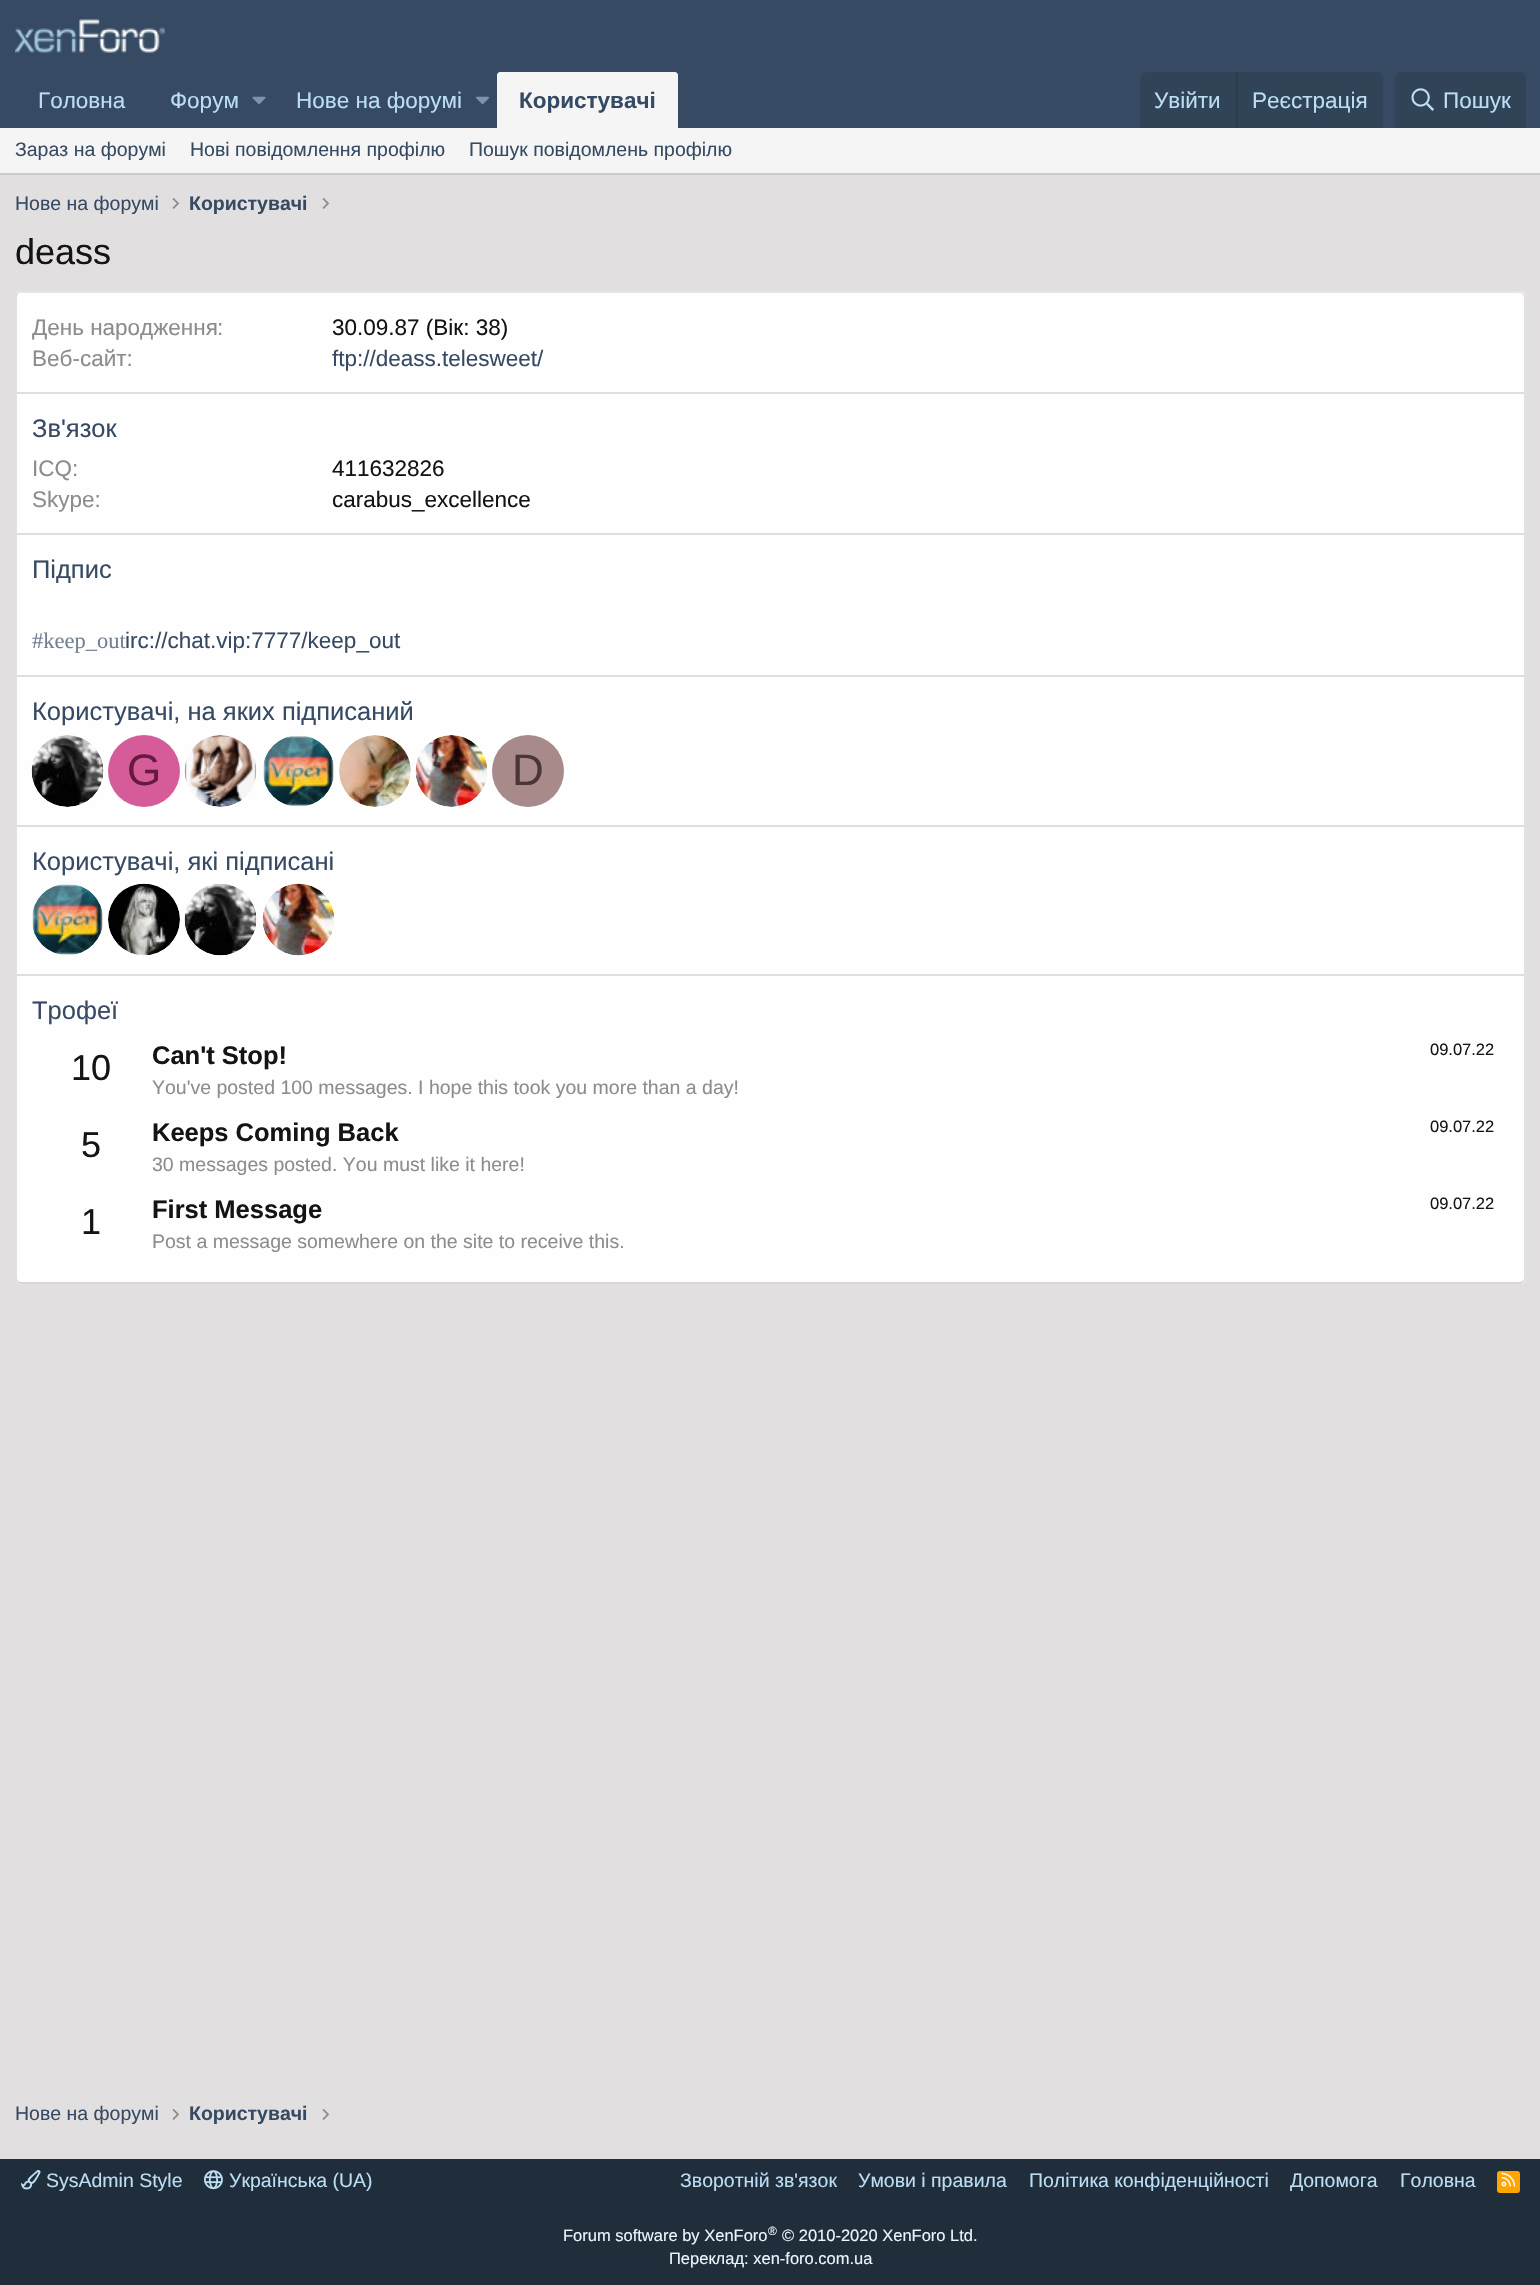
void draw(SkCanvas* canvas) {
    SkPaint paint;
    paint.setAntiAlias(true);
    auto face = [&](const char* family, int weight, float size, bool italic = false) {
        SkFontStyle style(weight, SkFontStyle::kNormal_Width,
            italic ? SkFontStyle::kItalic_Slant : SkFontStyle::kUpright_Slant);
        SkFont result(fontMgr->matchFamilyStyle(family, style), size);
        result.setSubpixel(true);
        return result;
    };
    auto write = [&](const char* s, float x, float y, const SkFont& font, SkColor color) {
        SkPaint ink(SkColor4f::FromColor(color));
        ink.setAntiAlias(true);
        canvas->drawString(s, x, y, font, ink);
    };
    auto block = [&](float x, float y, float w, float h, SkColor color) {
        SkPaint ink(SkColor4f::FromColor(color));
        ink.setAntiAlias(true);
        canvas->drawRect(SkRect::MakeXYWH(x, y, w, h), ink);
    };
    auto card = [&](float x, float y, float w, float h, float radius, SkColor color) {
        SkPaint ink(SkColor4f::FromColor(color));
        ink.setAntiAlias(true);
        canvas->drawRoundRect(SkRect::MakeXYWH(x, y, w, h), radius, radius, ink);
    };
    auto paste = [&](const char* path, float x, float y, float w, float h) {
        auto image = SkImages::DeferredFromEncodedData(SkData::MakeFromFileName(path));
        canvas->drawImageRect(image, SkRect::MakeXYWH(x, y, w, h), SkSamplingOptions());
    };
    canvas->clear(SkColorSetRGB(225, 223, 223));
    block(0, 0, 1540, 128, SkColorSetRGB(54, 75, 99));
    paste("pic1.png", 15, 19, 150, 34);
    auto kFont1 = face("Liberation Sans", 400, 22.5f);
    write("Головна", 38, 108, kFont1, SkColorSetRGB(188, 222, 245));
    write("Форум", 170, 108, kFont1, SkColorSetRGB(188, 222, 245));
    paste("pic2.png", 252, 96, 14, 8);
    write("Нове на форумі", 296, 108, kFont1, SkColorSetRGB(188, 222, 245));
    paste("pic3.png", 476, 96, 13, 9);
    paint.setColor(SkColorSetRGB(245, 245, 245));
    canvas->drawPath(SkPathBuilder().moveTo(500, 72).lineTo(675, 72).cubicTo(676.5f, 72, 678, 73.5f, 678, 75).lineTo(678, 128).lineTo(497, 128).lineTo(497, 75).cubicTo(497, 73.5f, 498.5f, 72, 500, 72).close().detach(), paint);
    auto kFont2 = face("Liberation Sans", 700, 22.5f);
    write("Користувачі", 519, 108, kFont2, SkColorSetRGB(54, 75, 99));
    paint.setColor(SkColorSetRGB(49, 67, 87));
    canvas->drawPath(SkPathBuilder().moveTo(1146, 72).lineTo(1377, 72).cubicTo(1380.5f, 72, 1383, 74.5f, 1383, 78).lineTo(1383, 128).lineTo(1140, 128).lineTo(1140, 78).cubicTo(1140, 74.5f, 1142.5f, 72, 1146, 72).close().detach(), paint);
    write("Увійти", 1154, 108, kFont1, SkColorSetRGB(188, 222, 245));
    block(1236, 72, 2, 56, SkColorSetRGB(45, 60, 77));
    write("Реєстрація", 1252, 108, kFont1, SkColorSetRGB(188, 222, 245));
    canvas->drawPath(SkPathBuilder().moveTo(1401, 72).lineTo(1520, 72).cubicTo(1523.5f, 72, 1526, 74.5f, 1526, 78).lineTo(1526, 128).lineTo(1395, 128).lineTo(1395, 78).cubicTo(1395, 74.5f, 1397.5f, 72, 1401, 72).close().detach(), paint);
    paste("pic4.png", 1411, 88, 23, 23);
    write("Пошук", 1443, 108, kFont1, SkColorSetRGB(188, 222, 245));
    block(0, 128, 1540, 45, SkColorSetRGB(245, 245, 245));
    block(0, 173, 1540, 2, SkColorSetRGB(203, 203, 203));
    auto kFont3 = face("Liberation Sans", 400, 19.5f);
    write("Зараз на форумі", 15, 156, kFont3, SkColorSetRGB(54, 75, 99));
    write("Нові повідомлення профілю", 190, 156, kFont3, SkColorSetRGB(54, 75, 99));
    write("Пошук повідомлень профілю", 469, 156, kFont3, SkColorSetRGB(54, 75, 99));
    write("Нове на форумі", 15, 210, kFont3, SkColorSetRGB(54, 75, 99));
    paste("pic5.png", 172, 198, 7, 11);
    auto kFont4 = face("Liberation Sans", 700, 19.5f);
    write("Користувачі", 189, 210, kFont4, SkColorSetRGB(54, 75, 99));
    paste("pic5.png", 322, 198, 7, 11);
    auto kFont5 = face("Liberation Sans", 400, 36);
    write("deass", 15, 264, kFont5, SkColorSetRGB(20, 20, 20));
    card(15, 291, 1511, 993, 6, SkColorSetRGB(254, 254, 254));
    paint.setStyle(SkPaint::kStroke_Style);
    paint.setStrokeWidth(1.5f);
    paint.setColor(SkColorSetRGB(223, 223, 223));
    canvas->drawPath(SkPathBuilder().moveTo(17.5f, 293.5f).cubicTo(18.5f, 292.5f, 19.5f, 292, 21, 292).lineTo(1519.5f, 292).cubicTo(1521, 292, 1522, 292.5f, 1523, 293.5f).detach(), paint);
    paint.setColor(SkColorSetRGB(216, 216, 216));
    canvas->drawPath(SkPathBuilder().moveTo(1523, 293.5f).cubicTo(1524, 294.5f, 1525, 295.5f, 1525, 297).lineTo(1525, 1278).cubicTo(1525, 1279.5f, 1524, 1280.5f, 1523, 1281.5f).detach(), paint);
    paint.setColor(SkColorSetRGB(203, 203, 203));
    canvas->drawPath(SkPathBuilder().moveTo(1523, 1281.5f).cubicTo(1522, 1282.5f, 1521, 1283, 1519.5f, 1283).lineTo(21, 1283).cubicTo(19.5f, 1283, 18.5f, 1282.5f, 17.5f, 1281.5f).detach(), paint);
    paint.setColor(SkColorSetRGB(216, 216, 216));
    canvas->drawPath(SkPathBuilder().moveTo(17.5f, 1281.5f).cubicTo(16.5f, 1280.5f, 16, 1279.5f, 16, 1278).lineTo(16, 297).cubicTo(16, 295.5f, 16.5f, 294.5f, 17.5f, 293.5f).detach(), paint);
    canvas->save();
    canvas->clipRect(SkRect::MakeXYWH(32, 311, 1477, 31));
    write("День народження", 32, 335, kFont1, SkColorSetRGB(140, 140, 140));
    canvas->restore();
    write(":", 217, 335, kFont1, SkColorSetRGB(140, 140, 140));
    write("30.09.87 (Вік: 38)", 332, 335, kFont1, SkColorSetRGB(20, 20, 20));
    write("Веб-сайт:", 32, 366, kFont1, SkColorSetRGB(140, 140, 140));
    write("ftp://deass.telesweet/", 332, 366, kFont1, SkColorSetRGB(54, 75, 99));
    block(17, 392, 1507, 2, SkColorSetRGB(223, 223, 223));
    auto kFont6 = face("Liberation Sans", 400, 25.5f);
    write("Зв'язок", 32, 437, kFont6, SkColorSetRGB(54, 75, 99));
    write("ICQ:", 32, 476, kFont1, SkColorSetRGB(140, 140, 140));
    write("411632826", 332, 476, kFont1, SkColorSetRGB(20, 20, 20));
    write("Skype:", 32, 507, kFont1, SkColorSetRGB(140, 140, 140));
    write("carabus_excellence", 332, 507, kFont1, SkColorSetRGB(20, 20, 20));
    block(17, 533, 1507, 2, SkColorSetRGB(223, 223, 223));
    write("Підпис", 32, 578, kFont6, SkColorSetRGB(54, 75, 99));
    auto kFont7 = face("Liberation Serif", 400, 22.5f);
    write("#keep_out", 32, 648, kFont7, SkColorSetRGB(112, 128, 144));
    write("irc://chat.vip:7777/keep_out", 125, 648, kFont1, SkColorSetRGB(54, 75, 99));
    block(17, 675, 1507, 2, SkColorSetRGB(223, 223, 223));
    write("Користувачі, на яких підписаний", 32, 720, kFont6, SkColorSetRGB(54, 75, 99));
    paste("pic6.png", 31, 735, 73, 72);
    paint.setStyle(SkPaint::kFill_Style);
    paint.setColor(SkColorSetRGB(214, 92, 153));
    canvas->drawCircle(144, 771, 36, paint);
    auto kFont8 = face("Liberation Sans", 400, 44);
    write("G", 127, 785, kFont8, SkColorSetRGB(102, 26, 64));
    paste("pic7.png", 184, 735, 73, 72);
    paste("pic8.png", 263, 735, 71, 72);
    paste("pic9.png", 339, 735, 72, 72);
    paste("pic10.png", 415, 735, 72, 72);
    paint.setColor(SkColorSetRGB(168, 138, 138));
    canvas->drawCircle(528, 771, 36, paint);
    write("D", 512, 785, kFont8, SkColorSetRGB(73, 54, 54));
    block(17, 825, 1507, 2, SkColorSetRGB(223, 223, 223));
    write("Користувачі, які підписані", 32, 870, kFont6, SkColorSetRGB(54, 75, 99));
    paste("pic11.png", 32, 884, 71, 71);
    paste("pic12.png", 108, 883, 72, 73);
    paste("pic13.png", 184, 883, 73, 73);
    paste("pic14.png", 262, 883, 72, 73);
    block(17, 974, 1507, 2, SkColorSetRGB(223, 223, 223));
    write("Трофеї", 32, 1019, kFont6, SkColorSetRGB(54, 75, 99));
    write("10", 71, 1080, kFont5, SkColorSetRGB(20, 20, 20));
    auto kFont9 = face("Liberation Sans", 700, 25.5f);
    write("Can't Stop!", 152, 1064, kFont9, SkColorSetRGB(20, 20, 20));
    auto kFont10 = face("Liberation Sans", 400, 16.5f);
    write("09.07.22", 1430, 1055, kFont10, SkColorSetRGB(20, 20, 20));
    write("You've posted 100 messages. I hope this took you more than a day!", 152, 1094, kFont3, SkColorSetRGB(140, 140, 140));
    write("5", 81, 1157, kFont5, SkColorSetRGB(20, 20, 20));
    write("Keeps Coming Back", 152, 1141, kFont9, SkColorSetRGB(20, 20, 20));
    write("09.07.22", 1430, 1132, kFont10, SkColorSetRGB(20, 20, 20));
    write("30 messages posted. You must like it here!", 152, 1171, kFont3, SkColorSetRGB(140, 140, 140));
    write("1", 81, 1234, kFont5, SkColorSetRGB(20, 20, 20));
    write("First Message", 152, 1218, kFont9, SkColorSetRGB(20, 20, 20));
    write("09.07.22", 1430, 1209, kFont10, SkColorSetRGB(20, 20, 20));
    write("Post a message somewhere on the site to receive this.", 152, 1248, kFont3, SkColorSetRGB(140, 140, 140));
    write("Нове на форумі", 15, 2120, kFont3, SkColorSetRGB(54, 75, 99));
    paste("pic5.png", 172, 2109, 7, 11);
    write("Користувачі", 189, 2120, kFont4, SkColorSetRGB(54, 75, 99));
    paste("pic5.png", 322, 2109, 7, 11);
    block(0, 2159, 1540, 126, SkColorSetRGB(32, 45, 59));
    paste("pic15.png", 21, 2170, 20, 20);
    write("SysAdmin Style", 46, 2187, kFont3, SkColorSetRGB(188, 222, 245));
    paste("pic16.png", 204, 2170, 19, 20);
    write("Українська (UA)", 229, 2187, kFont3, SkColorSetRGB(188, 222, 245));
    write("Зворотній зв'язок", 680, 2187, kFont3, SkColorSetRGB(188, 222, 245));
    write("Умови і правила", 858, 2187, kFont3, SkColorSetRGB(188, 222, 245));
    write("Політика конфіденційності", 1029, 2187, kFont3, SkColorSetRGB(188, 222, 245));
    write("Дoпoмoга", 1290, 2187, kFont3, SkColorSetRGB(188, 222, 245));
    write("Головна", 1400, 2187, kFont3, SkColorSetRGB(188, 222, 245));
    card(1497, 2171, 23, 22, 3, SkColorSetRGB(255, 165, 0));
    paste("pic17.png", 1501, 2172, 15, 15);
    write("Forum software by XenForo", 563, 2241, kFont10, SkColorSetRGB(237, 246, 253));
    auto kFont11 = face("Liberation Sans", 400, 12);
    write("®", 768, 2235, kFont11, SkColorSetRGB(237, 246, 253));
    write("© 2010-2020 XenForo Ltd.", 782, 2241, kFont10, SkColorSetRGB(237, 246, 253));
    write("Переклад: xen-foro.com.ua", 669, 2264, kFont10, SkColorSetRGB(237, 246, 253));
}
